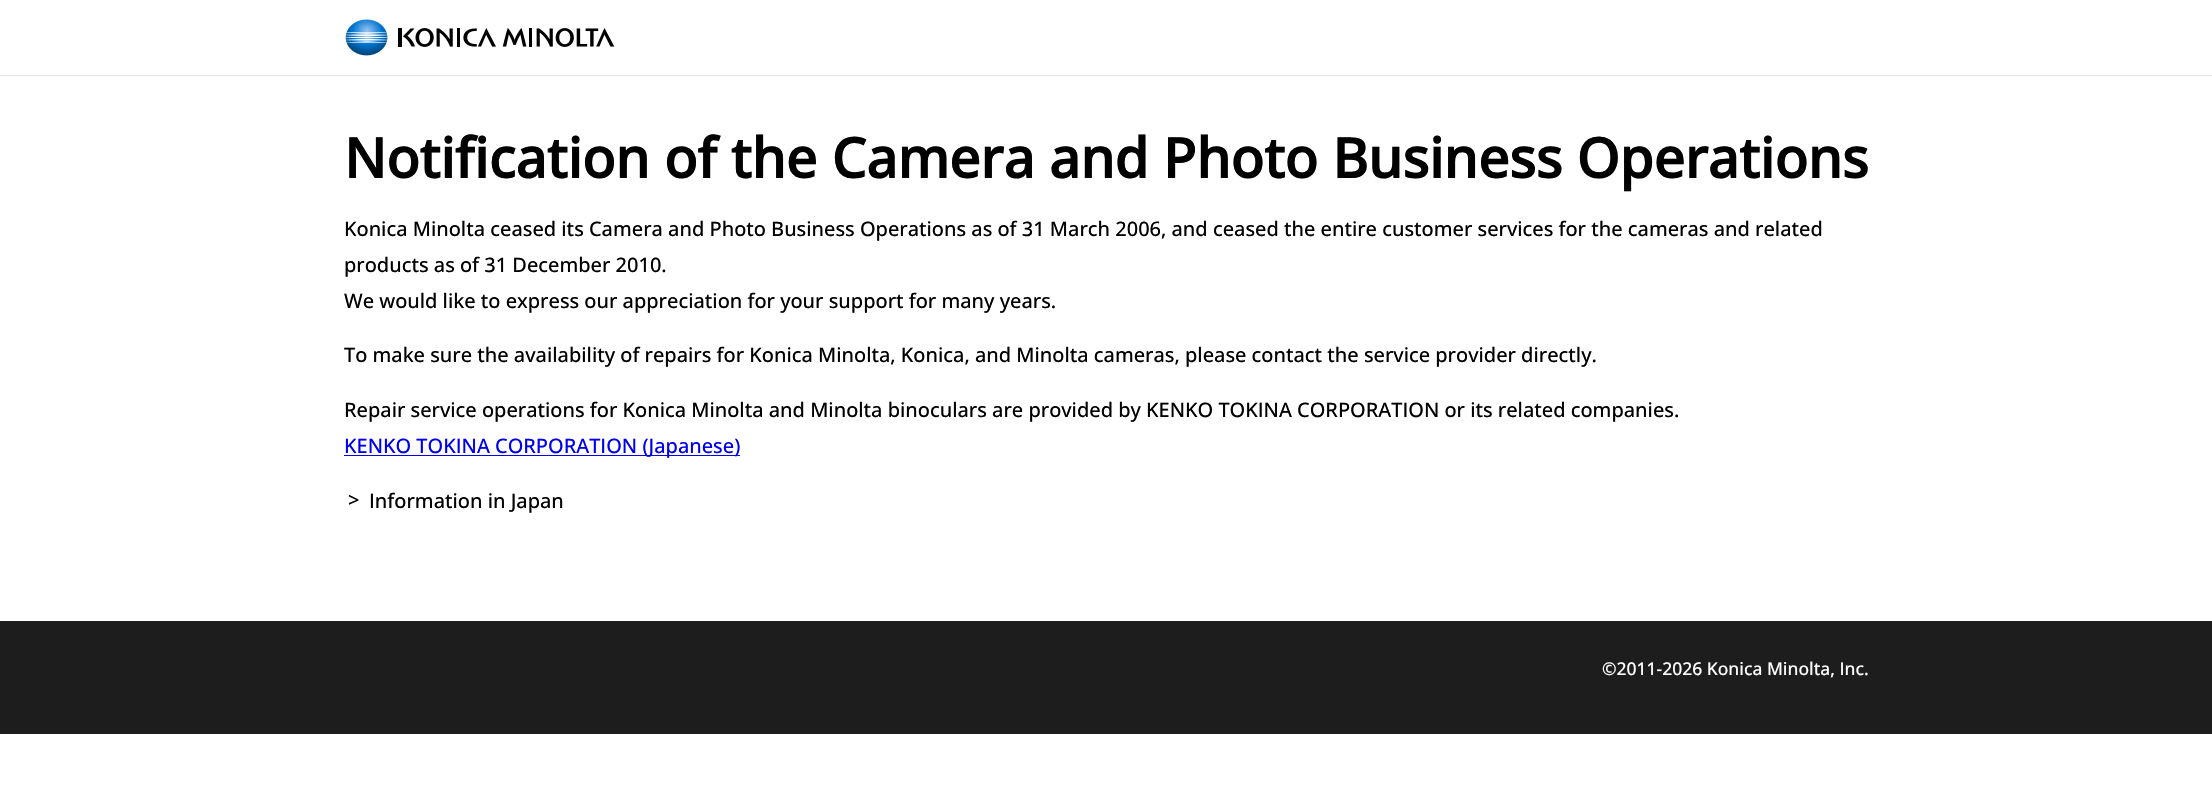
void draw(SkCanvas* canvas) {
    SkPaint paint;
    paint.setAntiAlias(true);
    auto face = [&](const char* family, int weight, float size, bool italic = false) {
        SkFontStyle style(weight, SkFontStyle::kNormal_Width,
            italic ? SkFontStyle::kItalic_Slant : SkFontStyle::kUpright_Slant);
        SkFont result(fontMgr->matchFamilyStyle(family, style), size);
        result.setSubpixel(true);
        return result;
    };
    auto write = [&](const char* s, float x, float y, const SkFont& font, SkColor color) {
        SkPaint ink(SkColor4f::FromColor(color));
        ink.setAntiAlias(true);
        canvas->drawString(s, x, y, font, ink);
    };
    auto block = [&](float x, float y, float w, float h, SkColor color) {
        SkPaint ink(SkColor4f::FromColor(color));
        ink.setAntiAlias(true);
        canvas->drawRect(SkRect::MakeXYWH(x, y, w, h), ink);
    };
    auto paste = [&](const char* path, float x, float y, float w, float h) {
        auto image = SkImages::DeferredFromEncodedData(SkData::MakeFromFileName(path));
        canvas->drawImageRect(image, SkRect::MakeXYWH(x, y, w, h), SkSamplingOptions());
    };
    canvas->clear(SK_ColorWHITE);
    paste("pic1.png", 345, 19, 270, 37);
    block(0, 75, 2212, 1, SkColorSetRGB(227, 227, 227));
    auto kFont1 = face("Open Sans", 700, 55);
    write("Notification of the Camera and Photo Business Operations", 344, 178, kFont1, SK_ColorBLACK);
    auto kFont2 = face("Open Sans", 500, 20);
    write("Konica Minolta ceased its Camera and Photo Business Operations as of 31 March 2006, and ceased the entire customer services for the cameras and related", 344, 236, kFont2, SK_ColorBLACK);
    write("products as of 31 December 2010.", 344, 272, kFont2, SK_ColorBLACK);
    write("We would like to express our appreciation for your support for many years.", 344, 308, kFont2, SK_ColorBLACK);
    write("To make sure the availability of repairs for Konica Minolta, Konica, and Minolta cameras, please contact the service provider directly.", 344, 362, kFont2, SK_ColorBLACK);
    write("Repair service operations for Konica Minolta and Minolta binoculars are provided by KENKO TOKINA CORPORATION or its related companies.", 344, 417, kFont2, SK_ColorBLACK);
    block(344, 455, 396, 1, SkColorSetRGB(0, 0, 238));
    write("KENKO TOKINA CORPORATION (Japanese)", 344, 453, kFont2, SkColorSetRGB(0, 0, 238));
    write(">", 348, 507, kFont2, SK_ColorBLACK);
    write("Information in Japan", 369, 508, kFont2, SK_ColorBLACK);
    block(0, 621, 2212, 113, SkColorSetRGB(29, 29, 29));
    auto kFont3 = face("Open Sans", 500, 17.5f);
    write("©2011-2026 Konica Minolta, Inc.", 1602, 675, kFont3, SK_ColorWHITE);
}
